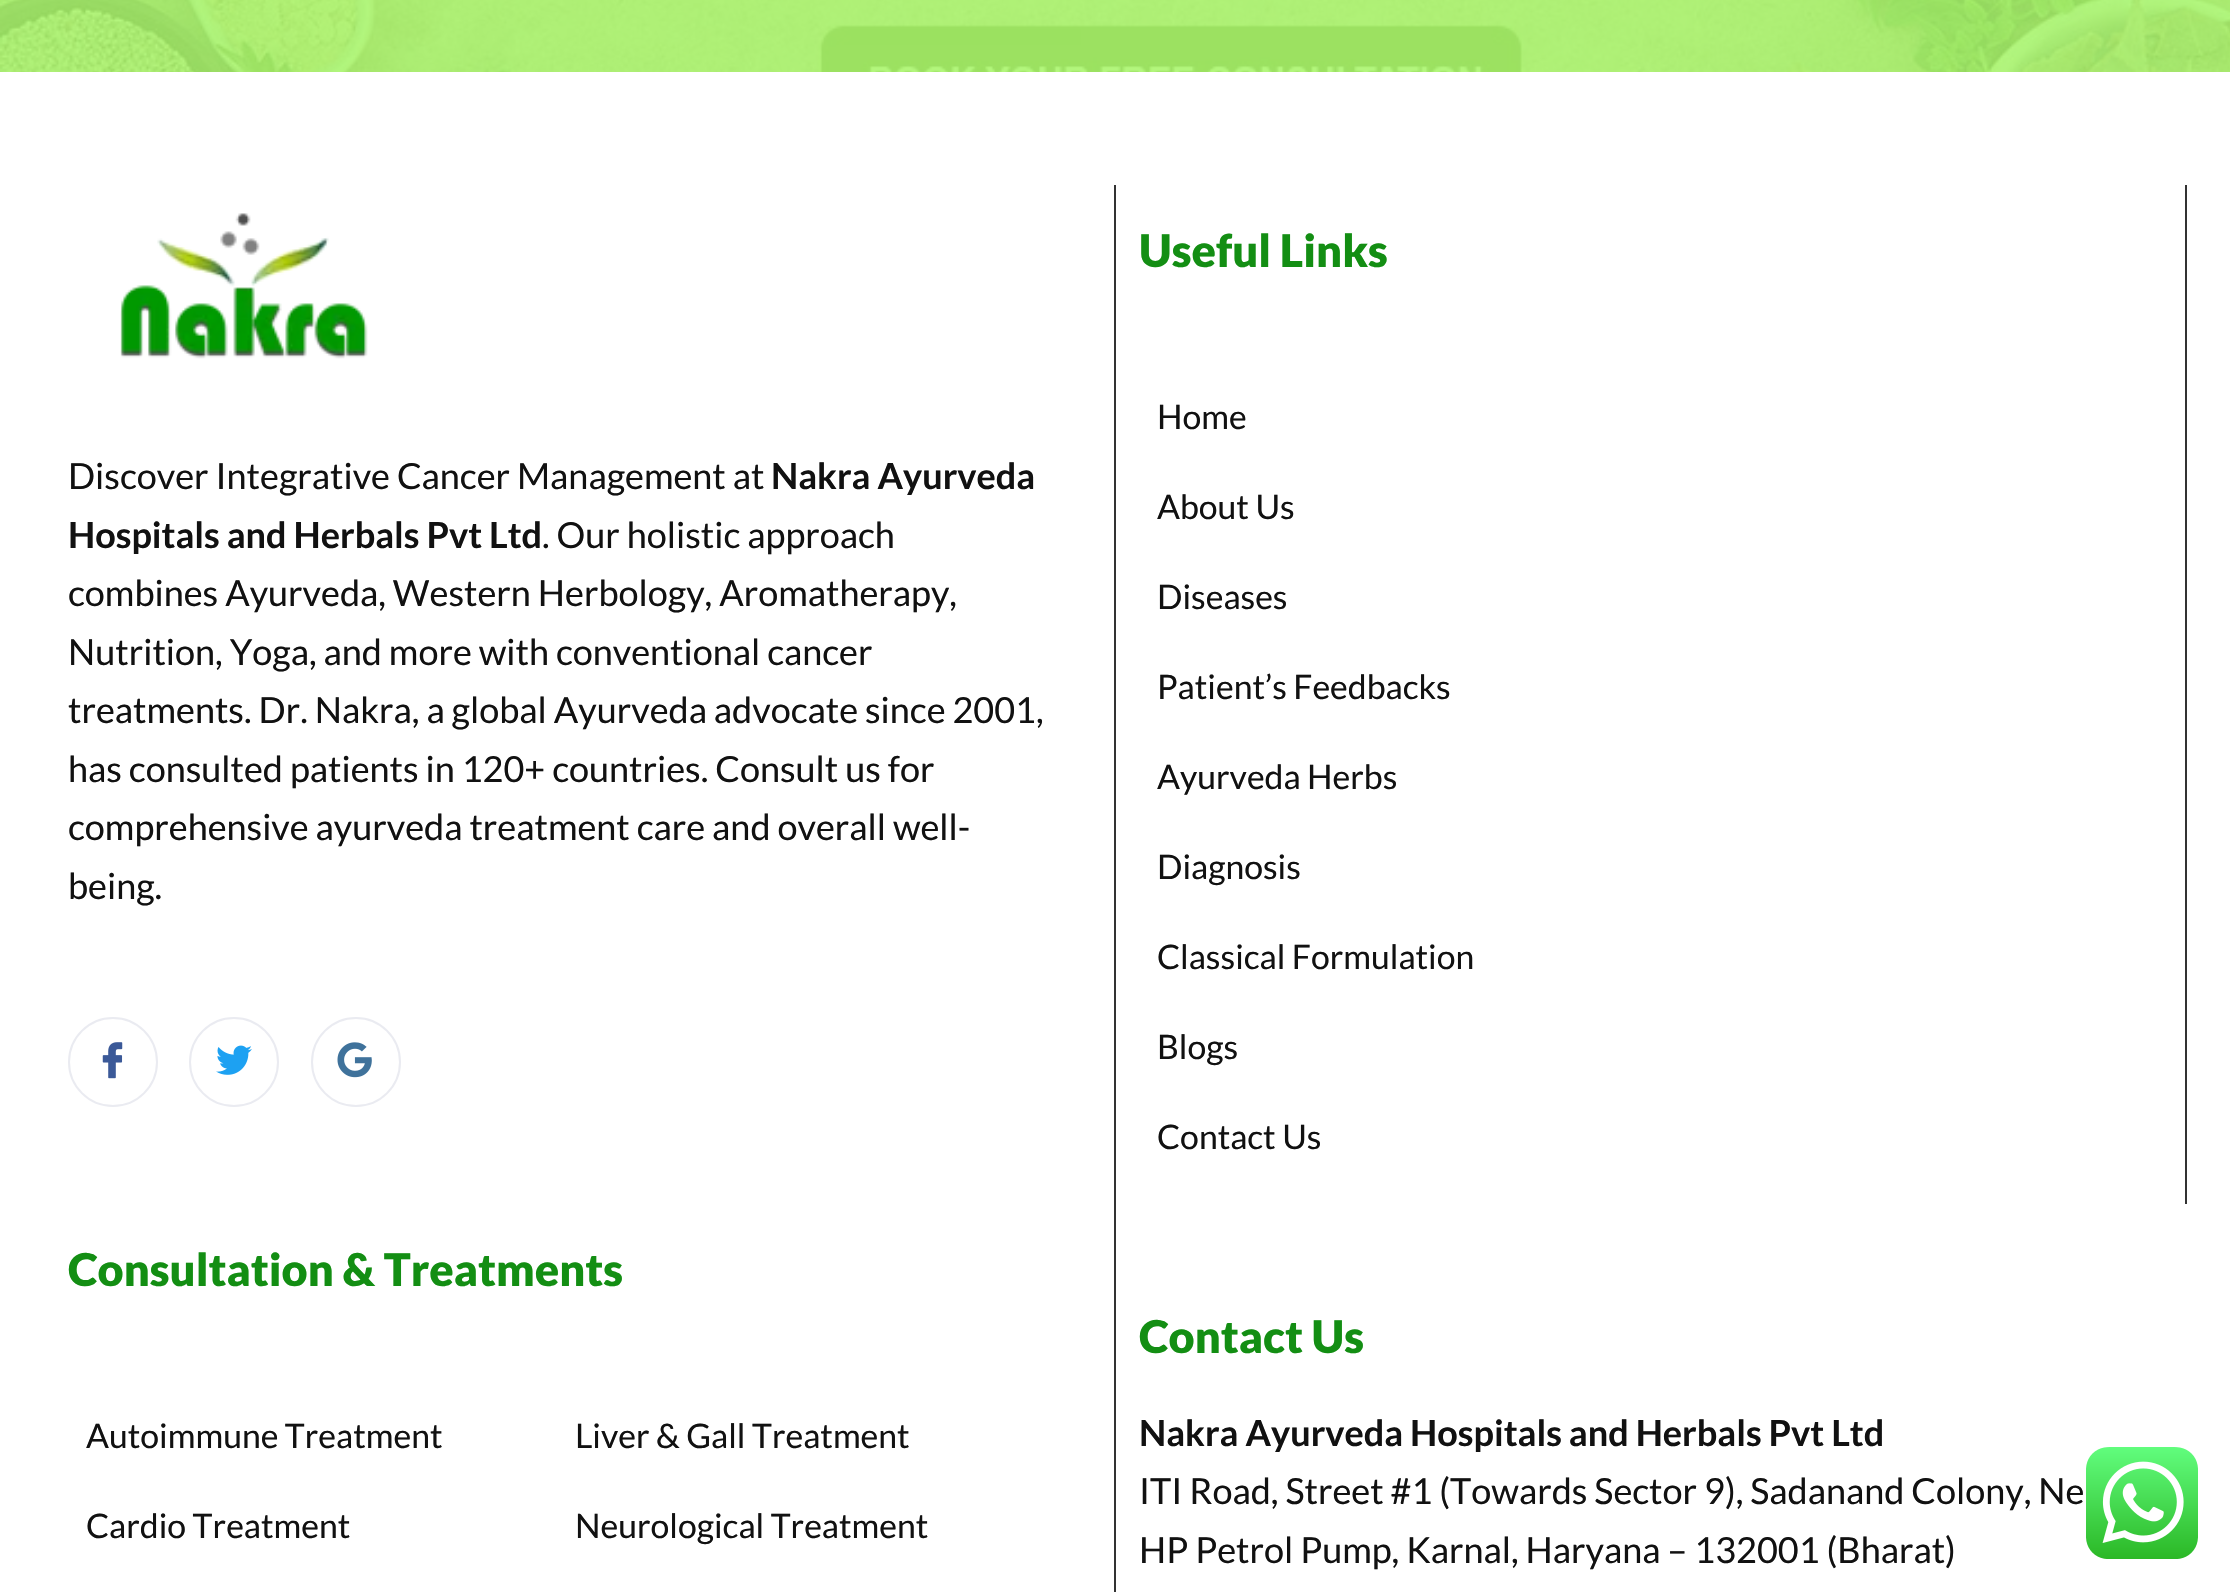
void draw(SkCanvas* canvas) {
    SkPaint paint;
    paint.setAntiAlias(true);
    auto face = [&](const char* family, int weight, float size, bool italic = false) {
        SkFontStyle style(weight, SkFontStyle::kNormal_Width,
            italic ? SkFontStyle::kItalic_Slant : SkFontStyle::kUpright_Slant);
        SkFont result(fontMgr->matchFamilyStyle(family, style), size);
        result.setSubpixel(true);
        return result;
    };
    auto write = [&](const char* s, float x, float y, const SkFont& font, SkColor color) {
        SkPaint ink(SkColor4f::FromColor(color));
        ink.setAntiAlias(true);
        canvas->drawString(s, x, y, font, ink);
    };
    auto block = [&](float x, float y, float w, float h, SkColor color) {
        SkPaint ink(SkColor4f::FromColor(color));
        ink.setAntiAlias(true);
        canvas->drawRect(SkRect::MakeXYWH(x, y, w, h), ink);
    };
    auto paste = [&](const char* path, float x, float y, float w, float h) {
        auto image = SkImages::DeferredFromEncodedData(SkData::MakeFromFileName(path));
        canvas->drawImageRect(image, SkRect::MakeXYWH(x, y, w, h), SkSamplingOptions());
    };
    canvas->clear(SK_ColorWHITE);
    block(0, 0, 2230, 72, SkColorSetRGB(169, 245, 108));
    paste("pic1.png", 0, 0, 2230, 72);
    block(1114, 185, 2, 1407, SkColorSetRGB(51, 51, 51));
    paste("pic2.png", 120, 213, 248, 146);
    auto kFont1 = face("Lato", 400, 36);
    write("Discover Integrative Cancer Management at", 68, 489, kFont1, SkColorSetRGB(17, 17, 17));
    auto kFont2 = face("Lato", 700, 36);
    write("Nakra Ayurveda", 771, 489, kFont2, SkColorSetRGB(17, 17, 17));
    write("Hospitals and Herbals Pvt Ltd", 68, 548, kFont2, SkColorSetRGB(17, 17, 17));
    write(". Our holistic approach", 542, 548, kFont1, SkColorSetRGB(17, 17, 17));
    write("combines Ayurveda, Western Herbology, Aromatherapy,", 68, 606, kFont1, SkColorSetRGB(17, 17, 17));
    write("Nutrition, Yoga, and more with conventional cancer", 68, 665, kFont1, SkColorSetRGB(17, 17, 17));
    write("treatments. Dr. Nakra, a global Ayurveda advocate since 2001,", 68, 723, kFont1, SkColorSetRGB(17, 17, 17));
    write("has consulted patients in 120+ countries. Consult us for", 68, 782, kFont1, SkColorSetRGB(17, 17, 17));
    write("comprehensive ayurveda treatment care and overall well-", 68, 840, kFont1, SkColorSetRGB(17, 17, 17));
    write("being.", 68, 899, kFont1, SkColorSetRGB(17, 17, 17));
    paint.setStyle(SkPaint::kStroke_Style);
    paint.setStrokeWidth(2);
    paint.setColor(SkColorSetRGB(234, 235, 241));
    canvas->drawCircle(113, 1062, 44, paint);
    paste("pic3.png", 102, 1042, 21, 37);
    canvas->drawCircle(234, 1062, 44, paint);
    paste("pic4.png", 216, 1045, 36, 30);
    canvas->drawCircle(356, 1062, 44, paint);
    paste("pic5.png", 337, 1042, 35, 36);
    block(2185, 185, 2, 1019, SkColorSetRGB(51, 51, 51));
    auto kFont3 = face("Lato", 900, 45);
    write("Useful Links", 1139, 267, kFont3, SkColorSetRGB(19, 142, 19));
    auto kFont4 = face("Lato", 400, 33.75f);
    write("Home", 1157, 429, kFont4, SkColorSetRGB(17, 17, 17));
    write("About Us", 1157, 519, kFont4, SkColorSetRGB(17, 17, 17));
    write("Diseases", 1157, 609, kFont4, SkColorSetRGB(17, 17, 17));
    write("Patient’s Feedbacks", 1157, 699, kFont4, SkColorSetRGB(17, 17, 17));
    write("Ayurveda Herbs", 1157, 789, kFont4, SkColorSetRGB(17, 17, 17));
    write("Diagnosis", 1157, 879, kFont4, SkColorSetRGB(17, 17, 17));
    write("Classical Formulation", 1157, 969, kFont4, SkColorSetRGB(17, 17, 17));
    write("Blogs", 1157, 1059, kFont4, SkColorSetRGB(17, 17, 17));
    write("Contact Us", 1157, 1149, kFont4, SkColorSetRGB(17, 17, 17));
    write("Consultation & Treatments", 68, 1286, kFont3, SkColorSetRGB(19, 142, 19));
    write("Autoimmune Treatment", 86, 1448, kFont4, SkColorSetRGB(17, 17, 17));
    write("Cardio Treatment", 86, 1538, kFont4, SkColorSetRGB(17, 17, 17));
    write("Liver & Gall Treatment", 575, 1448, kFont4, SkColorSetRGB(17, 17, 17));
    write("Neurological Treatment", 575, 1538, kFont4, SkColorSetRGB(17, 17, 17));
    write("Contact Us", 1139, 1353, kFont3, SkColorSetRGB(19, 142, 19));
    write("Nakra Ayurveda Hospitals and Herbals Pvt Ltd", 1139, 1446, kFont2, SkColorSetRGB(17, 17, 17));
    write("ITI Road, Street #1 (Towards Sector 9), Sadanand Colony, Ne", 1139, 1504, kFont1, SkColorSetRGB(17, 17, 17));
    write("HP Petrol Pump, Karnal, Haryana – 132001 (Bharat)", 1139, 1563, kFont1, SkColorSetRGB(17, 17, 17));
    paste("pic6.png", 2086, 1447, 112, 112);
}
